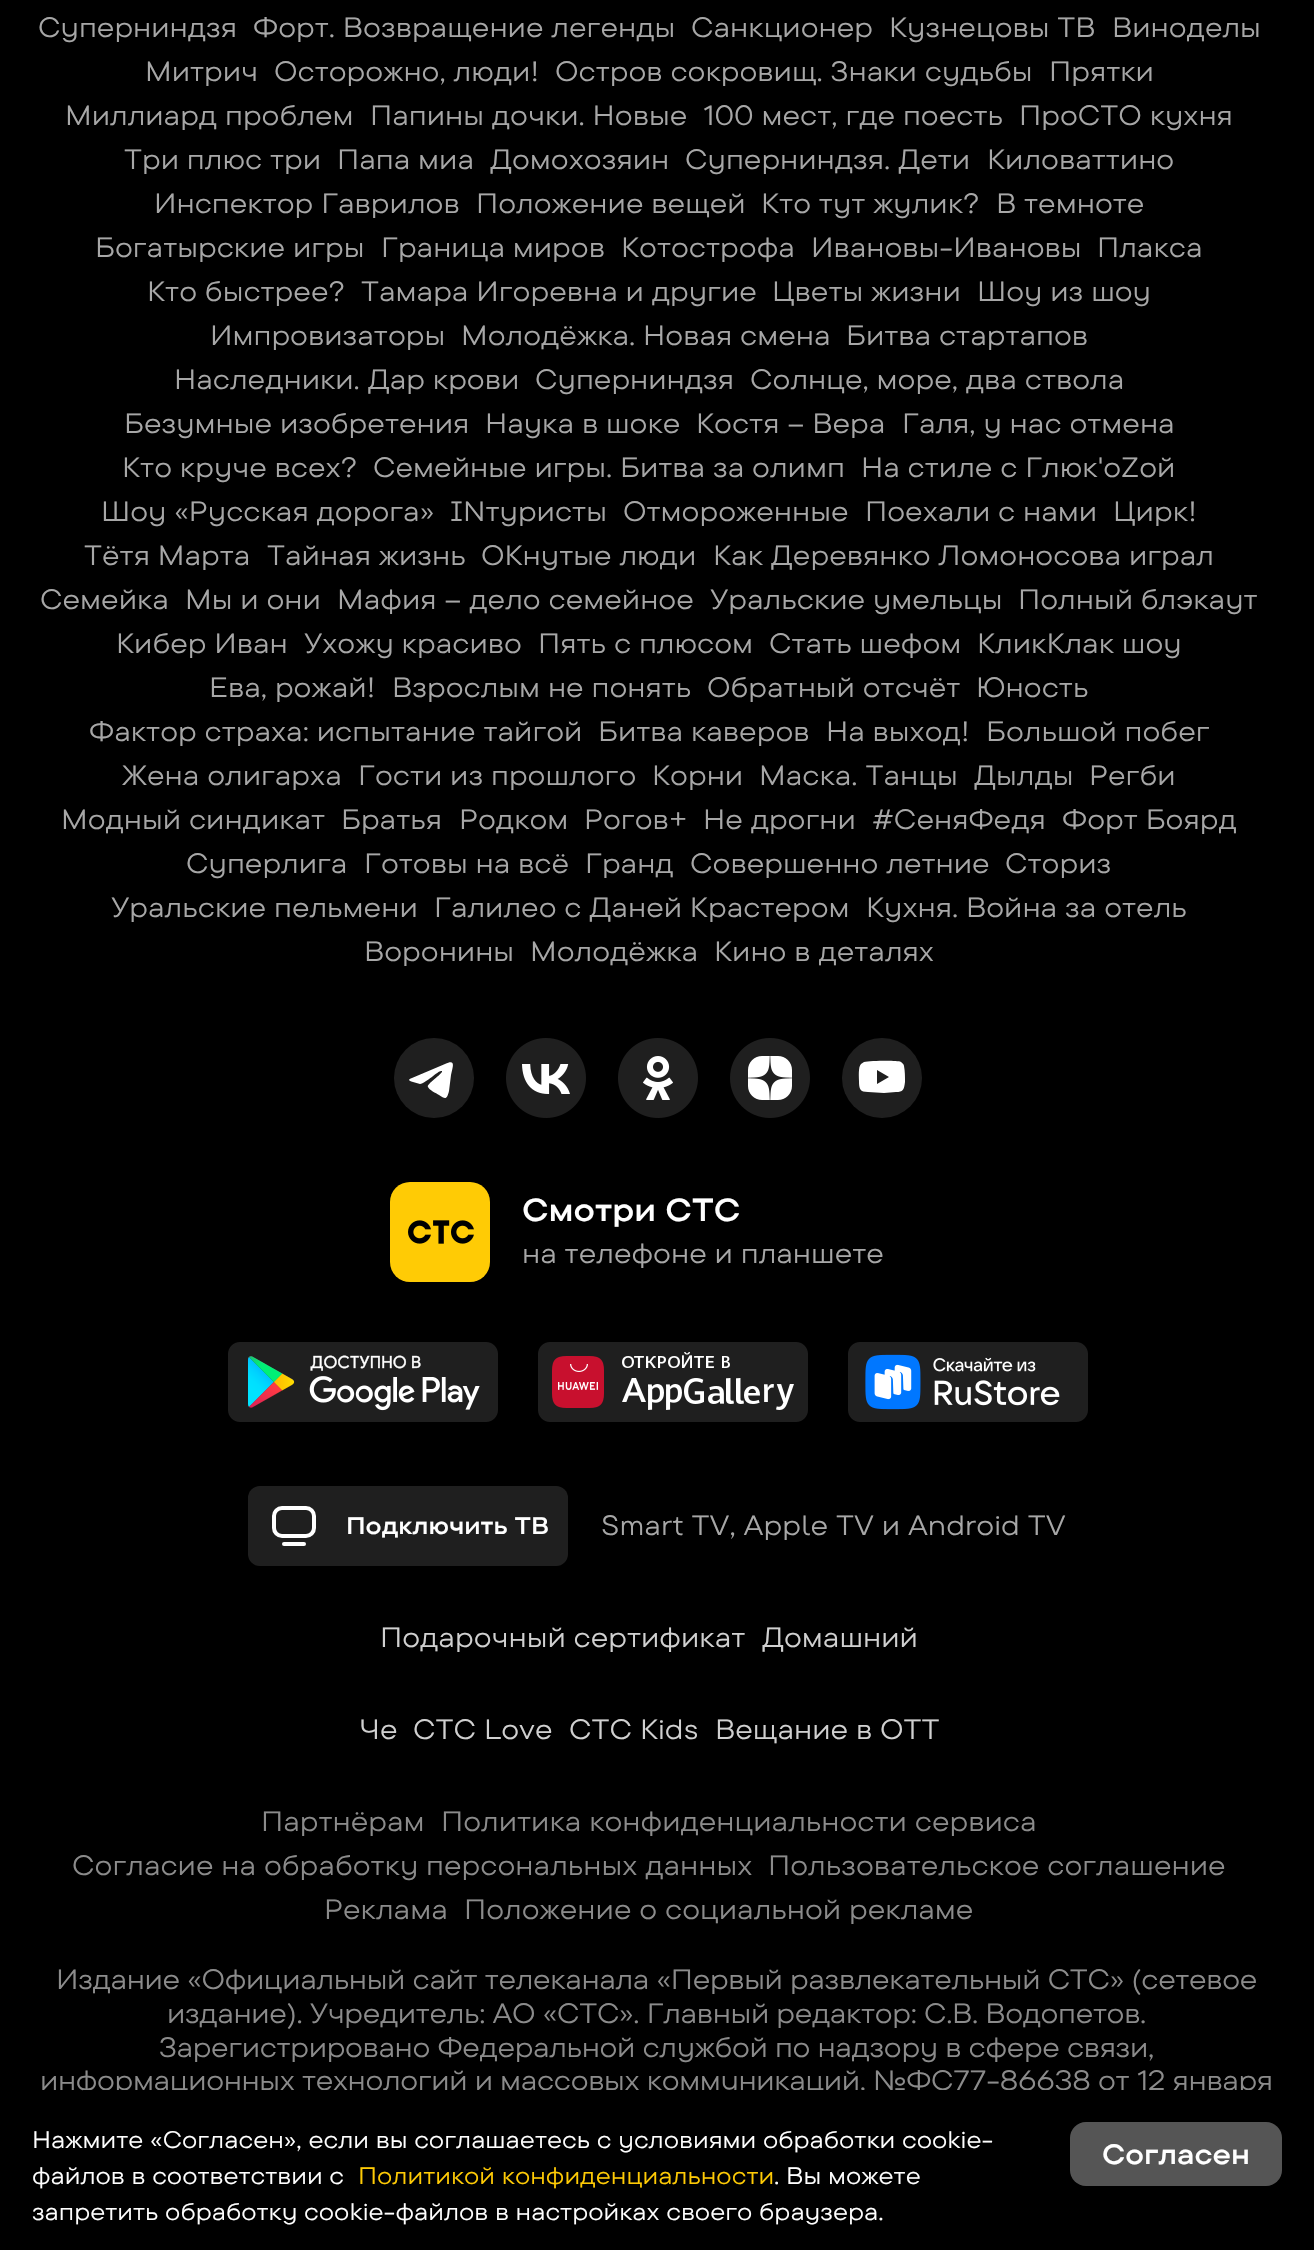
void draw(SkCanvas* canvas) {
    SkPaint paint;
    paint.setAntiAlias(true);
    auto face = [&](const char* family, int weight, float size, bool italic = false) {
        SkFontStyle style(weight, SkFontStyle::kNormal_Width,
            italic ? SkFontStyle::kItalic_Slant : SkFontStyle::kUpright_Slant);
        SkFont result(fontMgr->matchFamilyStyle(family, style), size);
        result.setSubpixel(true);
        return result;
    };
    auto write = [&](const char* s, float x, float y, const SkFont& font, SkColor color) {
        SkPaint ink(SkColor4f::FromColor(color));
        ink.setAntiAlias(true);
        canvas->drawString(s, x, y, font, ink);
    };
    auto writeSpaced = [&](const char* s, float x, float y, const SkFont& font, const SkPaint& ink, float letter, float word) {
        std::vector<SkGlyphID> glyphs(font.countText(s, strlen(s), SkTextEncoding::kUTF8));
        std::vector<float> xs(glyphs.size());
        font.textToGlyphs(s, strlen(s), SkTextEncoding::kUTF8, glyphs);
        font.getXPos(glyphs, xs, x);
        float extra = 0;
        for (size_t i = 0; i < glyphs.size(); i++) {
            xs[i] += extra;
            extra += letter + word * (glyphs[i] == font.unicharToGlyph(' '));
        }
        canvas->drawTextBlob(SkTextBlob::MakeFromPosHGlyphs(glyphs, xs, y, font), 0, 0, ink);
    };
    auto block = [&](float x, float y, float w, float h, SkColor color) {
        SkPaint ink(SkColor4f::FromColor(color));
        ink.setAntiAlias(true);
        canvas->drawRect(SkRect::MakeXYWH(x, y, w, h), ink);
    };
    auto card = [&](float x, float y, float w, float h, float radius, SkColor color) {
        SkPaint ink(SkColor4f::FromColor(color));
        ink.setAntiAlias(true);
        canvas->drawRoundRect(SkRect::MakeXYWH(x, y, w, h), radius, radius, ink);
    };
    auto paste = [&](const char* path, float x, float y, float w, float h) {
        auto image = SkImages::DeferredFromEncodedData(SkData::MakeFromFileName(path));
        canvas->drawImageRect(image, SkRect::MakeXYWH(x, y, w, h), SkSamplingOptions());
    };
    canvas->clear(SK_ColorBLACK);
    auto kFont1 = face("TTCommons", 400, 28);
    write("Суперниндзя", 38, 37, kFont1, SkColorSetRGB(167, 167, 167));
    write("Форт. Возвращение легенды", 253, 37, kFont1, SkColorSetRGB(167, 167, 167));
    write("Санкционер", 691, 37, kFont1, SkColorSetRGB(167, 167, 167));
    write("Кузнецовы ТВ", 889, 37, kFont1, SkColorSetRGB(167, 167, 167));
    write("Виноделы", 1112, 37, kFont1, SkColorSetRGB(167, 167, 167));
    write("Митрич", 145, 81, kFont1, SkColorSetRGB(167, 167, 167));
    write("Осторожно, люди!", 274, 81, kFont1, SkColorSetRGB(167, 167, 167));
    write("Остров сокровищ. Знаки судьбы", 555, 81, kFont1, SkColorSetRGB(167, 167, 167));
    write("Прятки", 1049, 81, kFont1, SkColorSetRGB(167, 167, 167));
    write("Миллиард проблем", 65, 125, kFont1, SkColorSetRGB(167, 167, 167));
    write("Папины дочки. Новые", 370, 125, kFont1, SkColorSetRGB(167, 167, 167));
    write("100 мест, где поесть", 703, 125, kFont1, SkColorSetRGB(167, 167, 167));
    write("ПроСТО кухня", 1019, 125, kFont1, SkColorSetRGB(167, 167, 167));
    write("Три плюс три", 124, 169, kFont1, SkColorSetRGB(167, 167, 167));
    write("Папа миа", 337, 169, kFont1, SkColorSetRGB(167, 167, 167));
    write("Домохозяин", 490, 169, kFont1, SkColorSetRGB(167, 167, 167));
    write("Суперниндзя. Дети", 685, 169, kFont1, SkColorSetRGB(167, 167, 167));
    write("Киловаттино", 987, 169, kFont1, SkColorSetRGB(167, 167, 167));
    write("Инспектор Гаврилов", 154, 213, kFont1, SkColorSetRGB(167, 167, 167));
    write("Положение вещей", 476, 213, kFont1, SkColorSetRGB(167, 167, 167));
    write("Кто тут жулик?", 761, 213, kFont1, SkColorSetRGB(167, 167, 167));
    write("В темноте", 996, 213, kFont1, SkColorSetRGB(167, 167, 167));
    write("Богатырские игры", 95, 257, kFont1, SkColorSetRGB(167, 167, 167));
    write("Граница миров", 381, 257, kFont1, SkColorSetRGB(167, 167, 167));
    write("Котострофа", 621, 257, kFont1, SkColorSetRGB(167, 167, 167));
    write("Ивановы-Ивановы", 811, 257, kFont1, SkColorSetRGB(167, 167, 167));
    write("Плакса", 1097, 257, kFont1, SkColorSetRGB(167, 167, 167));
    write("Кто быстрее?", 147, 301, kFont1, SkColorSetRGB(167, 167, 167));
    write("Тамара Игоревна и другие", 361, 301, kFont1, SkColorSetRGB(167, 167, 167));
    write("Цветы жизни", 772, 301, kFont1, SkColorSetRGB(167, 167, 167));
    write("Шоу из шоу", 977, 301, kFont1, SkColorSetRGB(167, 167, 167));
    write("Импровизаторы", 210, 345, kFont1, SkColorSetRGB(167, 167, 167));
    write("Молодёжка. Новая смена", 461, 345, kFont1, SkColorSetRGB(167, 167, 167));
    write("Битва стартапов", 846, 345, kFont1, SkColorSetRGB(167, 167, 167));
    write("Наследники. Дар крови", 174, 389, kFont1, SkColorSetRGB(167, 167, 167));
    write("Суперниндзя", 535, 389, kFont1, SkColorSetRGB(167, 167, 167));
    write("Солнце, море, два ствола", 750, 389, kFont1, SkColorSetRGB(167, 167, 167));
    write("Безумные изобретения", 124, 433, kFont1, SkColorSetRGB(167, 167, 167));
    write("Наука в шоке", 485, 433, kFont1, SkColorSetRGB(167, 167, 167));
    write("Костя – Вера", 696, 433, kFont1, SkColorSetRGB(167, 167, 167));
    write("Галя, у нас отмена", 902, 433, kFont1, SkColorSetRGB(167, 167, 167));
    write("Кто круче всех?", 122, 477, kFont1, SkColorSetRGB(167, 167, 167));
    write("Семейные игры. Битва за олимп", 373, 477, kFont1, SkColorSetRGB(167, 167, 167));
    write("На стиле с Глюк'oZой", 861, 477, kFont1, SkColorSetRGB(167, 167, 167));
    write("Шоу «Русская дорога»", 101, 521, kFont1, SkColorSetRGB(167, 167, 167));
    write("INтуристы", 450, 521, kFont1, SkColorSetRGB(167, 167, 167));
    write("Отмороженные", 623, 521, kFont1, SkColorSetRGB(167, 167, 167));
    write("Поехали с нами", 865, 521, kFont1, SkColorSetRGB(167, 167, 167));
    write("Цирк!", 1113, 521, kFont1, SkColorSetRGB(167, 167, 167));
    write("Тётя Марта", 84, 565, kFont1, SkColorSetRGB(167, 167, 167));
    write("Тайная жизнь", 267, 565, kFont1, SkColorSetRGB(167, 167, 167));
    write("ОКнутые люди", 481, 565, kFont1, SkColorSetRGB(167, 167, 167));
    write("Как Деревянко Ломоносова играл", 713, 565, kFont1, SkColorSetRGB(167, 167, 167));
    write("Семейка", 40, 609, kFont1, SkColorSetRGB(167, 167, 167));
    write("Мы и они", 185, 609, kFont1, SkColorSetRGB(167, 167, 167));
    write("Мафия – дело семейное", 337, 609, kFont1, SkColorSetRGB(167, 167, 167));
    write("Уральские умельцы", 710, 609, kFont1, SkColorSetRGB(167, 167, 167));
    write("Полный блэкаут", 1018, 609, kFont1, SkColorSetRGB(167, 167, 167));
    write("Кибер Иван", 116, 653, kFont1, SkColorSetRGB(167, 167, 167));
    write("Ухожу красиво", 304, 653, kFont1, SkColorSetRGB(167, 167, 167));
    write("Пять с плюсом", 538, 653, kFont1, SkColorSetRGB(167, 167, 167));
    write("Стать шефом", 769, 653, kFont1, SkColorSetRGB(167, 167, 167));
    write("КликКлак шоу", 977, 653, kFont1, SkColorSetRGB(167, 167, 167));
    write("Ева, рожай!", 209, 697, kFont1, SkColorSetRGB(167, 167, 167));
    write("Взрослым не понять", 392, 697, kFont1, SkColorSetRGB(167, 167, 167));
    write("Обратный отсчёт", 707, 697, kFont1, SkColorSetRGB(167, 167, 167));
    write("Юность", 976, 697, kFont1, SkColorSetRGB(167, 167, 167));
    write("Фактор страха: испытание тайгой", 89, 741, kFont1, SkColorSetRGB(167, 167, 167));
    write("Битва каверов", 598, 741, kFont1, SkColorSetRGB(167, 167, 167));
    write("На выход!", 826, 741, kFont1, SkColorSetRGB(167, 167, 167));
    write("Большой побег", 986, 741, kFont1, SkColorSetRGB(167, 167, 167));
    write("Жена олигарха", 122, 785, kFont1, SkColorSetRGB(167, 167, 167));
    write("Гости из прошлого", 358, 785, kFont1, SkColorSetRGB(167, 167, 167));
    write("Корни", 652, 785, kFont1, SkColorSetRGB(167, 167, 167));
    write("Маска. Танцы", 759, 785, kFont1, SkColorSetRGB(167, 167, 167));
    write("Дылды", 974, 785, kFont1, SkColorSetRGB(167, 167, 167));
    write("Регби", 1089, 785, kFont1, SkColorSetRGB(167, 167, 167));
    write("Модный синдикат", 61, 829, kFont1, SkColorSetRGB(167, 167, 167));
    write("Братья", 341, 829, kFont1, SkColorSetRGB(167, 167, 167));
    write("Родком", 459, 829, kFont1, SkColorSetRGB(167, 167, 167));
    write("Рогов+", 584, 829, kFont1, SkColorSetRGB(167, 167, 167));
    write("Не дрогни", 703, 829, kFont1, SkColorSetRGB(167, 167, 167));
    write("#СеняФедя", 872, 829, kFont1, SkColorSetRGB(167, 167, 167));
    write("Форт Боярд", 1062, 829, kFont1, SkColorSetRGB(167, 167, 167));
    write("Суперлига", 186, 873, kFont1, SkColorSetRGB(167, 167, 167));
    write("Готовы на всё", 364, 873, kFont1, SkColorSetRGB(167, 167, 167));
    write("Гранд", 585, 873, kFont1, SkColorSetRGB(167, 167, 167));
    write("Совершенно летние", 690, 873, kFont1, SkColorSetRGB(167, 167, 167));
    write("Сториз", 1005, 873, kFont1, SkColorSetRGB(167, 167, 167));
    write("Уральские пельмени", 111, 917, kFont1, SkColorSetRGB(167, 167, 167));
    write("Галилео с Даней Крастером", 434, 917, kFont1, SkColorSetRGB(167, 167, 167));
    write("Кухня. Война за отель", 866, 917, kFont1, SkColorSetRGB(167, 167, 167));
    write("Воронины", 364, 961, kFont1, SkColorSetRGB(167, 167, 167));
    write("Молодёжка", 530, 961, kFont1, SkColorSetRGB(167, 167, 167));
    write("Кино в деталях", 714, 961, kFont1, SkColorSetRGB(167, 167, 167));
    paint.setColor(SkColorSetRGB(31, 31, 31));
    canvas->drawCircle(434, 1078, 40, paint);
    paint.setColor(SK_ColorWHITE);
    canvas->drawPath(SkPathBuilder().moveTo(412, 1078).lineTo(445, 1064).cubicTo(456, 1059, 453, 1066, 451, 1075).lineTo(449, 1091).cubicTo(447, 1099, 446, 1100, 439, 1095).cubicTo(436, 1093, 429, 1090, 428, 1087).cubicTo(426, 1084, 443, 1074, 442, 1071).lineTo(441, 1071).cubicTo(438, 1071, 426, 1083, 420, 1084).lineTo(413, 1082).cubicTo(408, 1081, 408, 1079, 412, 1078).close().detach(), paint);
    paste("pic1.png", 506, 1038, 80, 80);
    paste("pic2.png", 618, 1038, 80, 80);
    paste("pic3.png", 730, 1038, 80, 80);
    paint.setColor(SkColorSetRGB(31, 31, 31));
    canvas->drawCircle(882, 1078, 40, paint);
    paint.setColor(SK_ColorWHITE);
    canvas->drawPath(SkPathBuilder().moveTo(904, 1066).cubicTo(904, 1064, 902, 1063, 901, 1062).cubicTo(896, 1060, 870, 1061, 864, 1062).lineTo(861, 1064).cubicTo(858, 1067, 859, 1077, 859, 1081).cubicTo(859, 1089, 860, 1092, 868, 1092).lineTo(884, 1093).lineTo(896, 1092).cubicTo(903, 1092, 904, 1090, 905, 1082).cubicTo(905, 1077, 905, 1071, 904, 1066).close().moveTo(877, 1084).lineTo(877, 1070).lineTo(889, 1077).close().detach(), paint);
    card(390, 1182, 100, 100, 20, SkColorSetRGB(255, 203, 5));
    paste("pic4.png", 408, 1220, 66, 24);
    auto kFont2 = face("TTCommons", 600, 32);
    write("Смотри СТС", 522, 1221, kFont2, SK_ColorWHITE);
    write("на телефоне и планшете", 522, 1263, kFont1, SkColorSetRGB(167, 167, 167));
    paste("pic5.png", 228, 1342, 270, 80);
    paste("pic6.png", 538, 1342, 270, 80);
    paste("pic7.png", 848, 1342, 240, 80);
    card(248, 1486, 320, 80, 12, SkColorSetRGB(31, 31, 31));
    paint.setStyle(SkPaint::kStroke_Style);
    paint.setStrokeWidth(4);
    canvas->drawRoundRect(SkRect::MakeXYWH(274, 1508, 40, 28), 8, 8, paint);
    card(282, 1542, 24, 4, 2, SK_ColorWHITE);
    auto kFont3 = face("TTCommons", 600, 24);
    write("Подключить ТВ", 346, 1534, kFont3, SK_ColorWHITE);
    write("Smart TV, Apple TV и Android TV", 601, 1535, kFont1, SkColorSetRGB(167, 167, 167));
    write("Подарочный сертификат", 380, 1647, kFont1, SkColorSetRGB(208, 208, 208));
    write("Домашний", 762, 1647, kFont1, SkColorSetRGB(208, 208, 208));
    write("Че", 359, 1739, kFont1, SkColorSetRGB(208, 208, 208));
    write("СТС Love", 413, 1739, kFont1, SkColorSetRGB(208, 208, 208));
    write("СТС Kids", 569, 1739, kFont1, SkColorSetRGB(208, 208, 208));
    write("Вещание в OTT", 715, 1739, kFont1, SkColorSetRGB(208, 208, 208));
    write("Партнёрам", 261, 1831, kFont1, SkColorSetRGB(139, 139, 139));
    write("Политика конфиденциальности сервиса", 441, 1831, kFont1, SkColorSetRGB(139, 139, 139));
    write("Согласие на обработку персональных данных", 72, 1875, kFont1, SkColorSetRGB(139, 139, 139));
    write("Пользовательское соглашение", 768, 1875, kFont1, SkColorSetRGB(139, 139, 139));
    write("Реклама", 324, 1919, kFont1, SkColorSetRGB(139, 139, 139));
    write("Положение о социальной рекламе", 464, 1919, kFont1, SkColorSetRGB(139, 139, 139));
    paint.setStyle(SkPaint::kFill_Style);
    paint.setColor(SkColorSetRGB(139, 139, 139));
    writeSpaced("Издание «Официальный сайт телеканала «Первый развлекательный СТС» (сетевое", 56, 1989, kFont1, paint, -0.35f, 0);
    writeSpaced("издание). Учредитель: АО «СТС». Главный редактор: С.В. Водопетов.", 167, 2023, kFont1, paint, -0.35f, 0);
    writeSpaced("Зарегистрировано Федеральной службой по надзору в сфере связи,", 159, 2057, kFont1, paint, -0.35f, 0);
    writeSpaced("информационных технологий и массовых коммуникаций, №ФС77-86638 от 12 января", 40, 2090, kFont1, paint, -0.35f, 0);
    block(83, 2090, 1169, 6, SK_ColorBLACK);
    auto kFont4 = face("TTCommons", 400, 24);
    write("Нажмите «Согласен», если вы соглашаетесь с условиями обработки cookie-", 32, 2148, kFont4, SK_ColorWHITE);
    write("файлов в соответствии с", 32, 2184, kFont4, SK_ColorWHITE);
    write("Политикой конфиденциальности", 358, 2184, kFont4, SkColorSetRGB(255, 203, 5));
    write(". Вы можете", 774, 2184, kFont4, SK_ColorWHITE);
    write("запретить обработку cookie-файлов в настройках своего браузера.", 32, 2220, kFont4, SK_ColorWHITE);
    card(1070, 2122, 212, 64, 16, SkColorSetRGB(85, 85, 85));
    auto kFont5 = face("TTCommons", 600, 28);
    write("Согласен", 1102, 2164, kFont5, SK_ColorWHITE);
}
